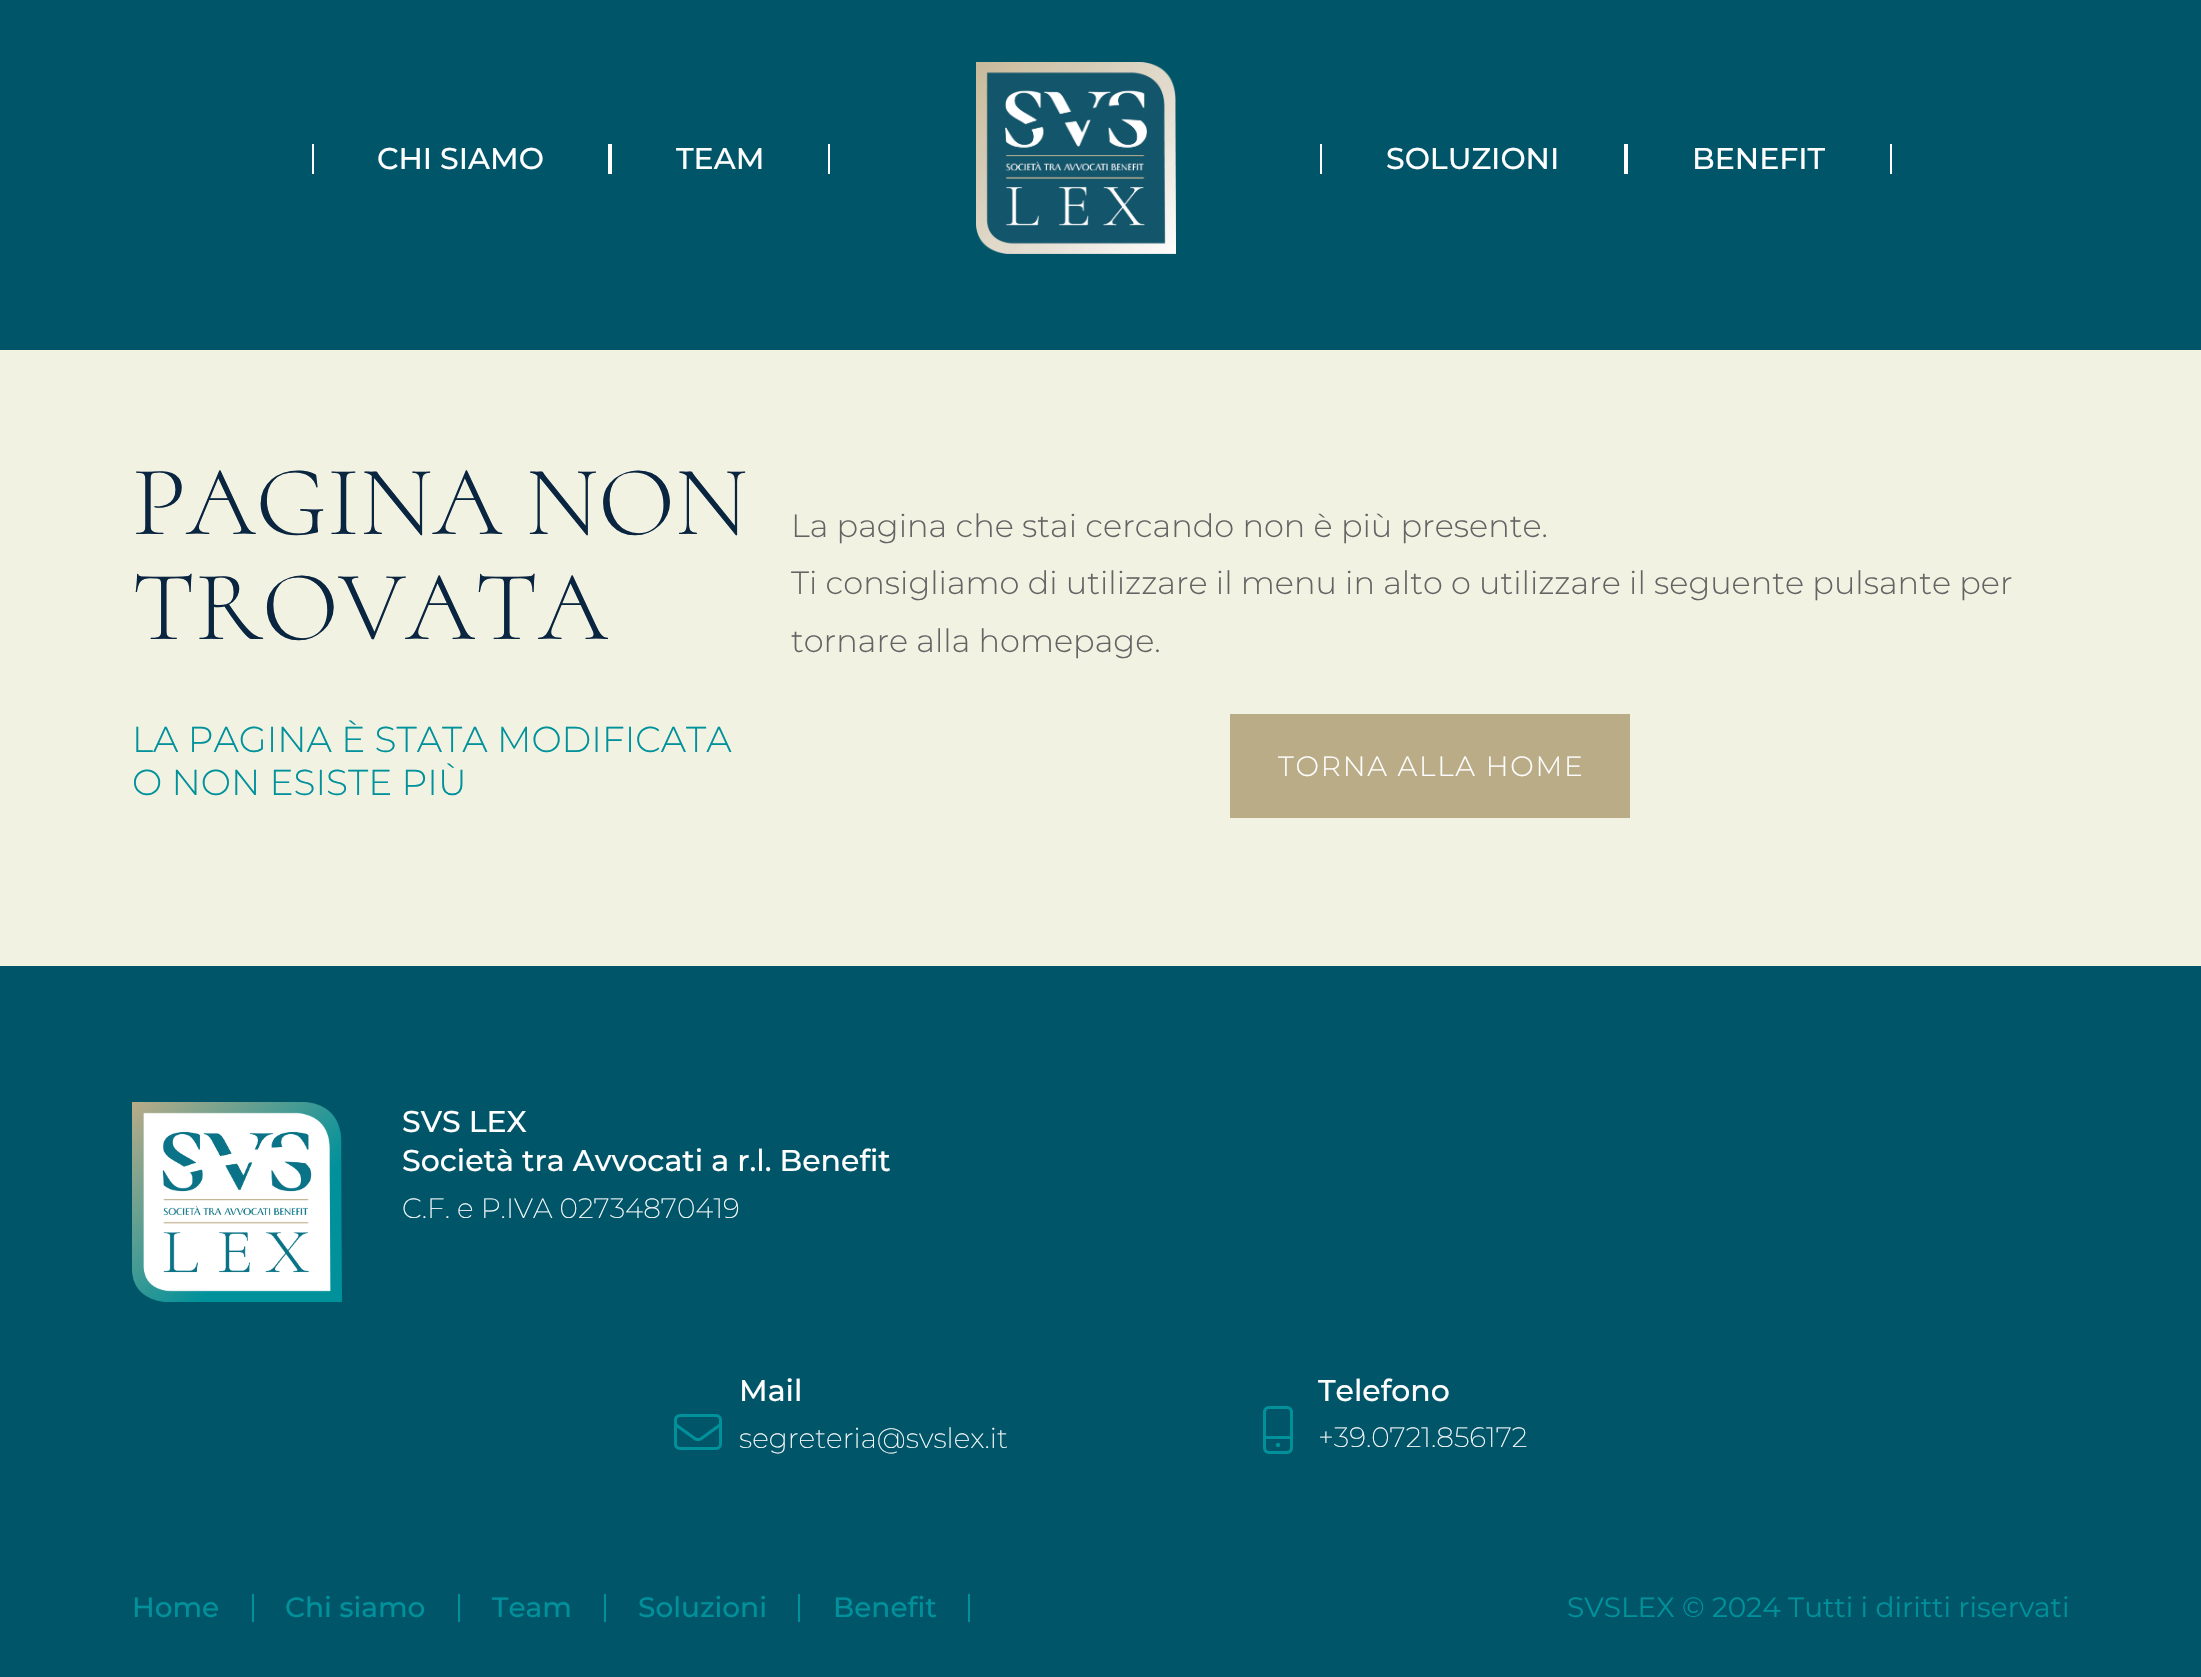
void draw(SkCanvas* canvas) {
    SkPaint paint;
    paint.setAntiAlias(true);
    auto face = [&](const char* family, int weight, float size, bool italic = false) {
        SkFontStyle style(weight, SkFontStyle::kNormal_Width,
            italic ? SkFontStyle::kItalic_Slant : SkFontStyle::kUpright_Slant);
        SkFont result(fontMgr->matchFamilyStyle(family, style), size);
        result.setSubpixel(true);
        return result;
    };
    auto write = [&](const char* s, float x, float y, const SkFont& font, SkColor color) {
        SkPaint ink(SkColor4f::FromColor(color));
        ink.setAntiAlias(true);
        canvas->drawString(s, x, y, font, ink);
    };
    auto writeSpaced = [&](const char* s, float x, float y, const SkFont& font, const SkPaint& ink, float letter, float word) {
        std::vector<SkGlyphID> glyphs(font.countText(s, strlen(s), SkTextEncoding::kUTF8));
        std::vector<float> xs(glyphs.size());
        font.textToGlyphs(s, strlen(s), SkTextEncoding::kUTF8, glyphs);
        font.getXPos(glyphs, xs, x);
        float extra = 0;
        for (size_t i = 0; i < glyphs.size(); i++) {
            xs[i] += extra;
            extra += letter + word * (glyphs[i] == font.unicharToGlyph(' '));
        }
        canvas->drawTextBlob(SkTextBlob::MakeFromPosHGlyphs(glyphs, xs, y, font), 0, 0, ink);
    };
    auto block = [&](float x, float y, float w, float h, SkColor color) {
        SkPaint ink(SkColor4f::FromColor(color));
        ink.setAntiAlias(true);
        canvas->drawRect(SkRect::MakeXYWH(x, y, w, h), ink);
    };
    auto paste = [&](const char* path, float x, float y, float w, float h) {
        auto image = SkImages::DeferredFromEncodedData(SkData::MakeFromFileName(path));
        canvas->drawImageRect(image, SkRect::MakeXYWH(x, y, w, h), SkSamplingOptions());
    };
    canvas->clear(SkColorSetRGB(242, 242, 227));
    block(0, 0, 2201, 350, SkColorSetRGB(0, 85, 105));
    block(608, 144, 4, 30, SK_ColorWHITE);
    block(312, 144, 2, 30, SK_ColorWHITE);
    auto kFont1 = face("Montserrat", 500, 30);
    write("CHI SIAMO", 377, 169, kFont1, SK_ColorWHITE);
    block(828, 144, 2, 30, SK_ColorWHITE);
    write("TEAM", 676, 169, kFont1, SK_ColorWHITE);
    paste("pic1.png", 976, 62, 200, 192);
    block(1624, 144, 4, 30, SK_ColorWHITE);
    block(1320, 144, 2, 30, SK_ColorWHITE);
    write("SOLUZIONI", 1386, 169, kFont1, SK_ColorWHITE);
    block(1890, 144, 2, 30, SK_ColorWHITE);
    write("BENEFIT", 1692, 169, kFont1, SK_ColorWHITE);
    auto kFont2 = face("Cormorant", 300, 100);
    write("PAGINA NON", 132, 534, kFont2, SkColorSetRGB(10, 37, 64));
    write("TROVATA", 132, 639, kFont2, SkColorSetRGB(10, 37, 64));
    auto kFont3 = face("Montserrat", 300, 36);
    write("LA PAGINA È STATA MODIFICATA", 132, 752, kFont3, SkColorSetRGB(0, 145, 155));
    write("O NON ESISTE PIÙ", 132, 795, kFont3, SkColorSetRGB(0, 145, 155));
    auto kFont4 = face("Montserrat", 300, 32);
    write("La pagina che stai cercando non è più presente.", 791, 537, kFont4, SkColorSetRGB(100, 100, 100));
    write("Ti consigliamo di utilizzare il menu in alto o utilizzare il seguente pulsante per", 791, 594, kFont4, SkColorSetRGB(100, 100, 100));
    write("tornare alla homepage.", 791, 652, kFont4, SkColorSetRGB(100, 100, 100));
    block(1230, 714, 400, 104, SkColorSetRGB(187, 172, 136));
    auto kFont5 = face("Montserrat", 300, 28);
    paint.setColor(SK_ColorWHITE);
    writeSpaced("TORNA ALLA HOME", 1278, 776, kFont5, paint, 1.75f, 0);
    block(0, 966, 2201, 711, SkColorSetRGB(0, 85, 105));
    paste("pic2.png", 132, 1102, 210, 200);
    write("SVS LEX", 402, 1132, kFont1, SK_ColorWHITE);
    write("Società tra Avvocati a r.l. Benefit", 402, 1171, kFont1, SK_ColorWHITE);
    auto kFont6 = face("Montserrat", 200, 28);
    write("C.F. e P.IVA 02734870419", 402, 1218, kFont6, SK_ColorWHITE);
    paste("pic3.png", 674, 1414, 48, 36);
    write("Mail", 739, 1401, kFont1, SK_ColorWHITE);
    write("segreteria@svslex.it", 739, 1448, kFont6, SK_ColorWHITE);
    paste("pic4.png", 1263, 1406, 30, 48);
    write("Telefono", 1318, 1401, kFont1, SK_ColorWHITE);
    write("+39.0721.856172", 1318, 1447, kFont6, SK_ColorWHITE);
    block(252, 1594, 2, 28, SkColorSetRGB(0, 145, 155));
    auto kFont7 = face("Montserrat", 500, 28);
    write("Home", 132, 1617, kFont7, SkColorSetRGB(0, 145, 155));
    block(458, 1594, 2, 28, SkColorSetRGB(0, 145, 155));
    write("Chi siamo", 285, 1617, kFont7, SkColorSetRGB(0, 145, 155));
    block(604, 1594, 2, 28, SkColorSetRGB(0, 145, 155));
    write("Team", 492, 1617, kFont7, SkColorSetRGB(0, 145, 155));
    block(798, 1594, 2, 28, SkColorSetRGB(0, 145, 155));
    write("Soluzioni", 638, 1617, kFont7, SkColorSetRGB(0, 145, 155));
    block(968, 1594, 2, 28, SkColorSetRGB(0, 145, 155));
    write("Benefit", 833, 1617, kFont7, SkColorSetRGB(0, 145, 155));
    auto kFont8 = face("Montserrat", 400, 28);
    write("SVSLEX © 2024 Tutti i diritti riservati", 1567, 1617, kFont8, SkColorSetRGB(0, 145, 155));
}
